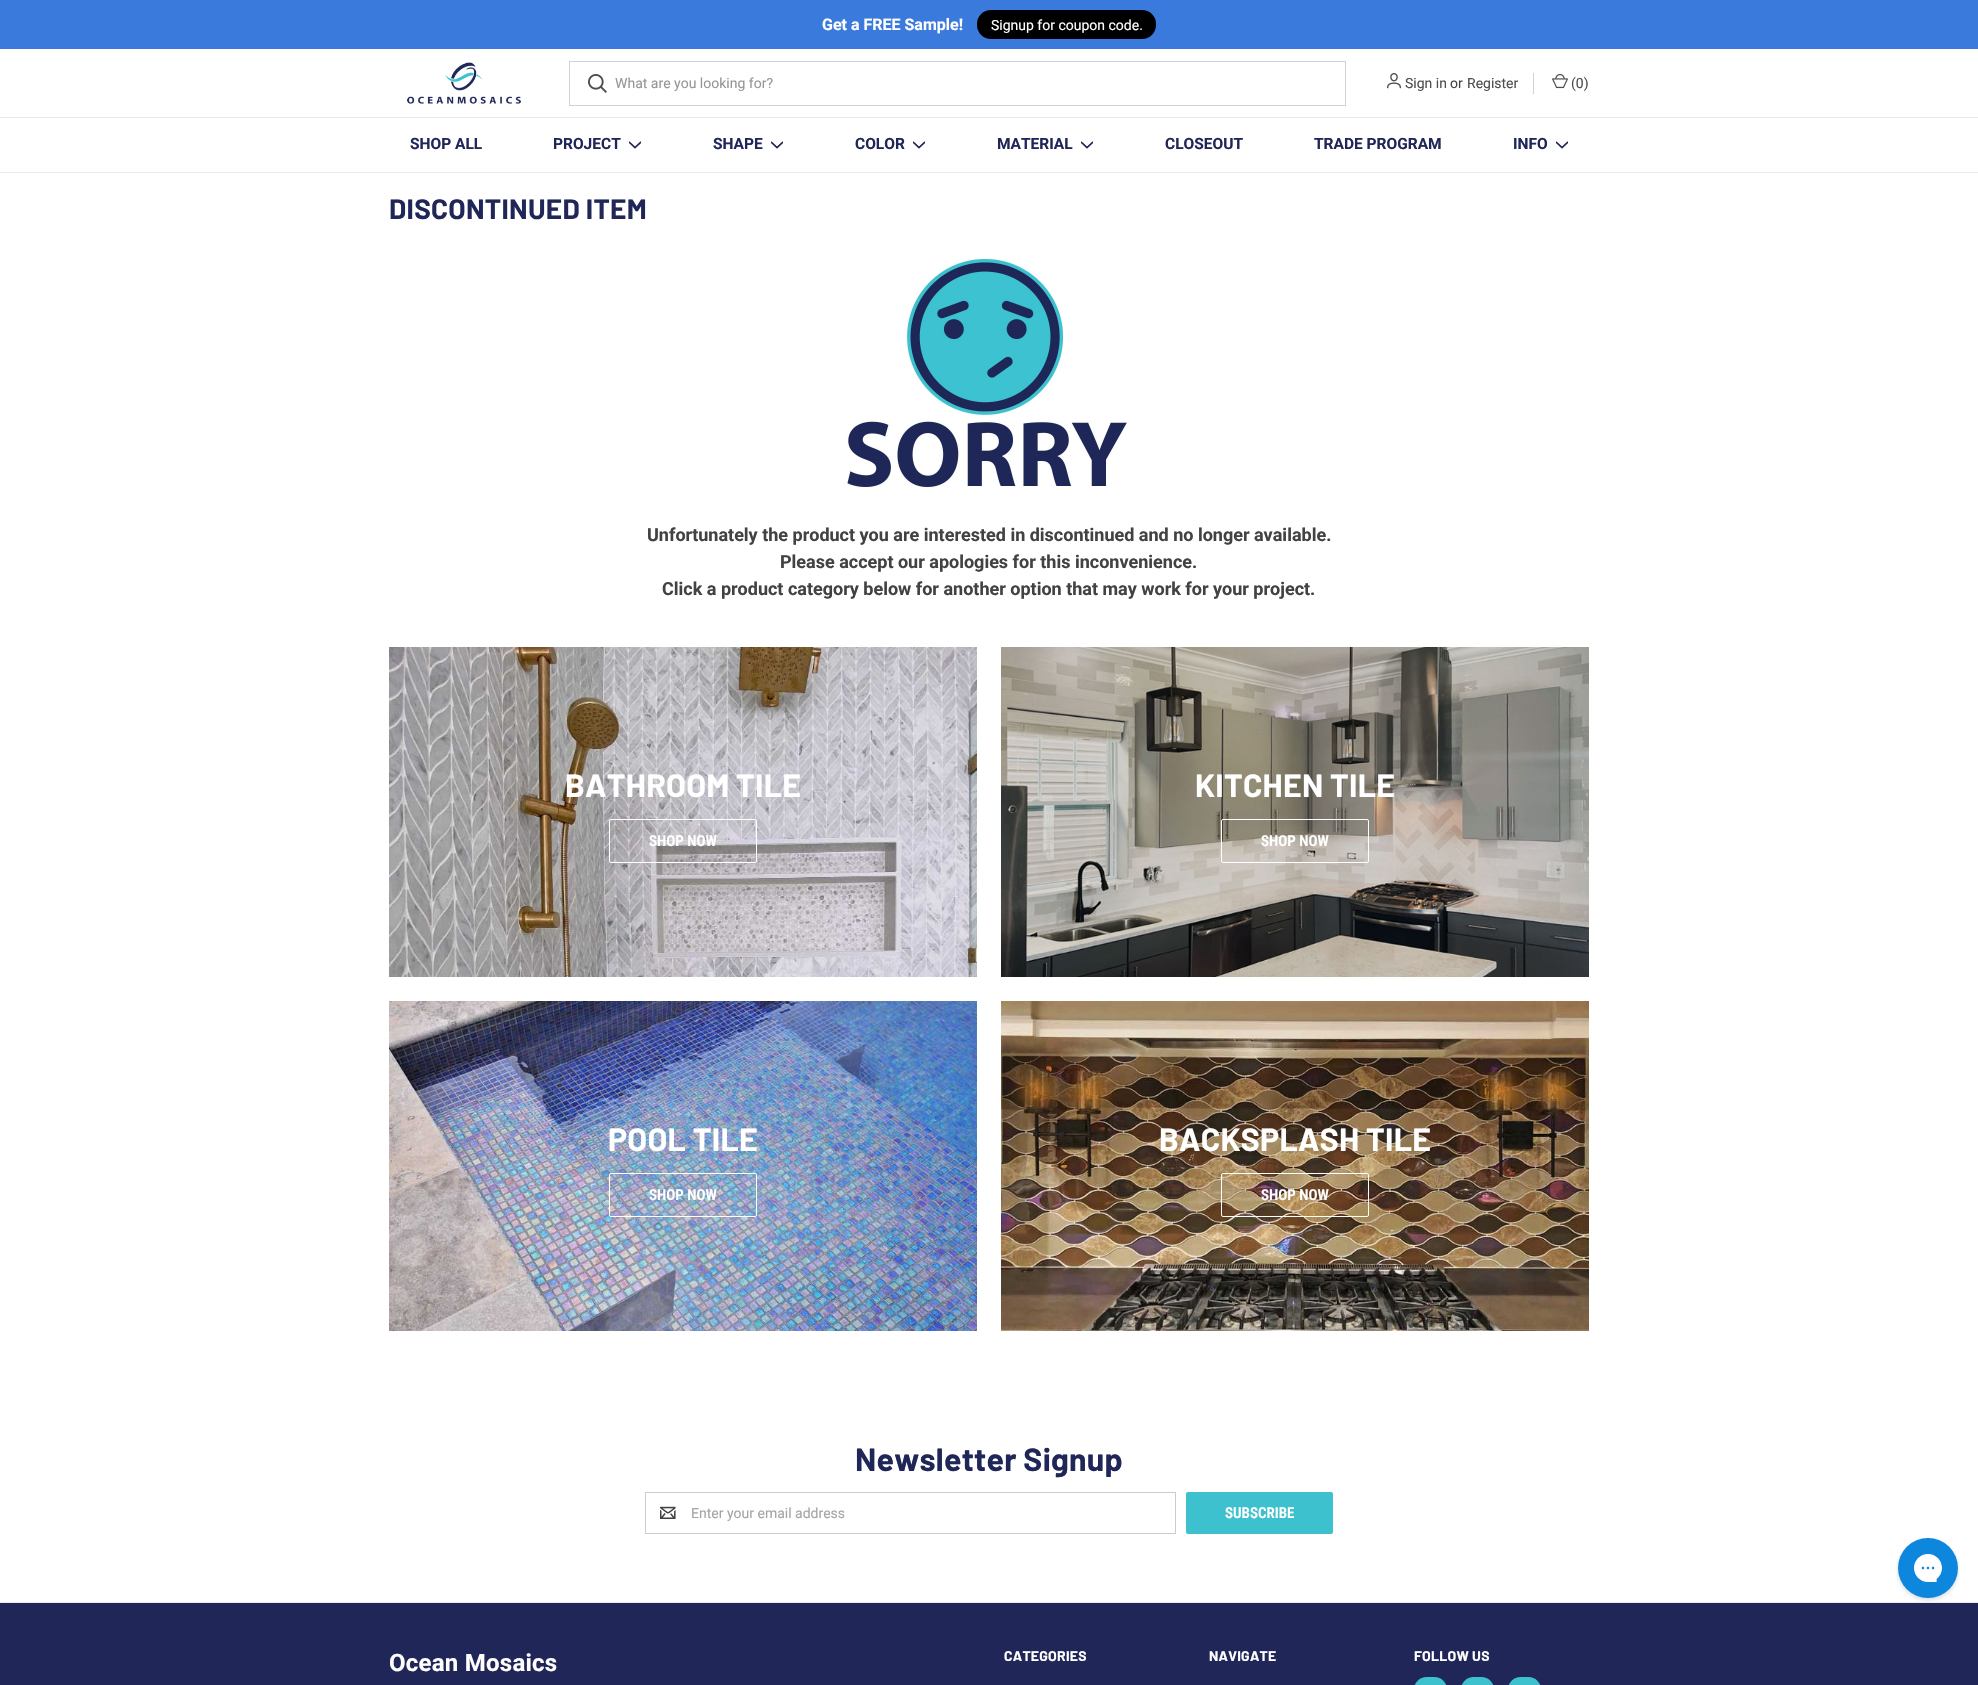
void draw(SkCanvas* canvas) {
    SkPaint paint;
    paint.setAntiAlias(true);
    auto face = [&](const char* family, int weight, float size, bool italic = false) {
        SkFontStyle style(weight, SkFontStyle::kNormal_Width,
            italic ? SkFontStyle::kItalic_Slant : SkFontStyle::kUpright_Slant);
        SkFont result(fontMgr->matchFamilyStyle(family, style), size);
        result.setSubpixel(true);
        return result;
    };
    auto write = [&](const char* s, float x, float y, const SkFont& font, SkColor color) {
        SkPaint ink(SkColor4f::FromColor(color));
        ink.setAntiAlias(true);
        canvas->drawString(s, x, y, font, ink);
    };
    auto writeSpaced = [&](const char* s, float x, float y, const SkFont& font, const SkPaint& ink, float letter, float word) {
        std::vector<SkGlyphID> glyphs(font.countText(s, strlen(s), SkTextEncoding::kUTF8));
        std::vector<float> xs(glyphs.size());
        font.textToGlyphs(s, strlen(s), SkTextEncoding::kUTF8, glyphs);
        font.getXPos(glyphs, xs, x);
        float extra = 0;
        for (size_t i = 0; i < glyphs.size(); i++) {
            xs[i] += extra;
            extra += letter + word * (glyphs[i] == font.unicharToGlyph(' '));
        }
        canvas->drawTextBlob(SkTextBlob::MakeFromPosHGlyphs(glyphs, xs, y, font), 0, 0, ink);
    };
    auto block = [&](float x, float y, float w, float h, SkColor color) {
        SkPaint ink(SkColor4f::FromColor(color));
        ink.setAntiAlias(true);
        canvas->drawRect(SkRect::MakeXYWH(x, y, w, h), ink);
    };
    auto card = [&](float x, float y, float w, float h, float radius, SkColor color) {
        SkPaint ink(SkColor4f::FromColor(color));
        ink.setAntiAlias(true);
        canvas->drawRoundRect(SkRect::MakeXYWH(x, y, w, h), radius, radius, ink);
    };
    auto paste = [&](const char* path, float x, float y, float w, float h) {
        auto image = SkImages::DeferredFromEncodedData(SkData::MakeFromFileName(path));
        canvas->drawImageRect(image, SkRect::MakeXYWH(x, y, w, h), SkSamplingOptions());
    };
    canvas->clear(SK_ColorWHITE);
    block(0, 0, 1978, 49, SkColorSetRGB(58, 122, 220));
    auto kFont1 = face("Roboto", 700, 16);
    write("Get a FREE Sample!", 822, 30, kFont1, SK_ColorWHITE);
    card(977, 10, 179, 29, 14, SK_ColorBLACK);
    auto kFont2 = face("Roboto", 400, 14);
    write("Signup for coupon code.", 991, 30, kFont2, SK_ColorWHITE);
    paste("pic1.png", 407, 62, 114, 42);
    paint.setStyle(SkPaint::kStroke_Style);
    paint.setStrokeWidth(1);
    paint.setColor(SkColorSetRGB(210, 210, 210));
    canvas->drawRect(SkRect::MakeXYWH(569.5f, 61.5f, 776, 44), paint);
    paste("pic2.png", 588, 74, 19, 19);
    write("What are you looking for?", 615, 88, kFont2, SkColorSetRGB(150, 150, 150));
    paste("pic3.png", 1387, 73, 14, 16);
    write("Sign in", 1405, 88, kFont2, SkColorSetRGB(78, 78, 78));
    write("or", 1450, 88, kFont2, SkColorSetRGB(66, 66, 66));
    write("Register", 1467, 88, kFont2, SkColorSetRGB(78, 78, 78));
    block(1533, 73, 1, 21, SkColorSetRGB(210, 210, 210));
    paste("pic4.png", 1552, 74, 16, 15);
    write("(0)", 1571, 88, kFont2, SkColorSetRGB(78, 78, 78));
    block(0, 117, 1978, 1, SkColorSetRGB(235, 235, 235));
    block(0, 172, 1978, 1, SkColorSetRGB(235, 235, 235));
    auto kFont3 = face("Roboto", 700, 15.5f);
    write("SHOP ALL", 410, 149, kFont3, SkColorSetRGB(32, 39, 88));
    write("PROJECT", 553, 149, kFont3, SkColorSetRGB(32, 39, 88));
    paste("pic5.png", 629, 141, 12, 8);
    write("SHAPE", 713, 149, kFont3, SkColorSetRGB(32, 39, 88));
    paste("pic5.png", 771, 141, 12, 8);
    write("COLOR", 855, 149, kFont3, SkColorSetRGB(32, 39, 88));
    paste("pic5.png", 913, 141, 12, 8);
    write("MATERIAL", 997, 149, kFont3, SkColorSetRGB(32, 39, 88));
    paste("pic5.png", 1081, 141, 12, 8);
    write("CLOSEOUT", 1165, 149, kFont3, SkColorSetRGB(32, 39, 88));
    write("TRADE PROGRAM", 1314, 149, kFont3, SkColorSetRGB(32, 39, 88));
    write("INFO", 1513, 149, kFont3, SkColorSetRGB(32, 39, 88));
    paste("pic5.png", 1556, 141, 12, 8);
    auto kFont4 = face("Barlow", 700, 28);
    paint.setStyle(SkPaint::kFill_Style);
    paint.setColor(SkColorSetRGB(32, 39, 88));
    writeSpaced("DISCONTINUED ITEM", 389, 219, kFont4, paint, 0.25f, 0);
    paste("pic6.png", 845, 258, 284, 232);
    auto kFont5 = face("Roboto", 700, 18);
    write("Unfortunately the product you are interested in discontinued and no longer available.", 647, 541, kFont5, SkColorSetRGB(66, 66, 66));
    write("Please accept our apologies for this inconvenience.", 780, 568, kFont5, SkColorSetRGB(66, 66, 66));
    write("Click a product category below for another option that may work for your project.", 662, 595, kFont5, SkColorSetRGB(66, 66, 66));
    paste("pic7.png", 389, 647, 588, 330);
    auto kFont6 = face("Barlow", 700, 32);
    paint.setColor(SK_ColorWHITE);
    writeSpaced("BATHROOM TILE", 565, 797, kFont6, paint, 0.25f, 0);
    paint.setStyle(SkPaint::kStroke_Style);
    canvas->drawRoundRect(SkRect::MakeXYWH(609.5f, 819.5f, 147, 43), 1.5f, 1.5f, paint);
    auto kFont7 = face("Roboto Condensed", 600, 15);
    write("SHOP NOW", 649, 846, kFont7, SK_ColorWHITE);
    paste("pic8.png", 1001, 647, 588, 330);
    paint.setStyle(SkPaint::kFill_Style);
    writeSpaced("KITCHEN TILE", 1195, 797, kFont6, paint, 0.25f, 0);
    paint.setStyle(SkPaint::kStroke_Style);
    canvas->drawRoundRect(SkRect::MakeXYWH(1221.5f, 819.5f, 147, 43), 1.5f, 1.5f, paint);
    write("SHOP NOW", 1261, 846, kFont7, SK_ColorWHITE);
    paste("pic9.png", 389, 1001, 588, 330);
    paint.setStyle(SkPaint::kFill_Style);
    writeSpaced("POOL TILE", 608, 1151, kFont6, paint, 0.25f, 0);
    paint.setStyle(SkPaint::kStroke_Style);
    canvas->drawRoundRect(SkRect::MakeXYWH(609.5f, 1173.5f, 147, 43), 1.5f, 1.5f, paint);
    write("SHOP NOW", 649, 1200, kFont7, SK_ColorWHITE);
    paste("pic10.png", 1001, 1001, 588, 330);
    paint.setStyle(SkPaint::kFill_Style);
    writeSpaced("BACKSPLASH TILE", 1159, 1151, kFont6, paint, 0.25f, 0);
    paint.setStyle(SkPaint::kStroke_Style);
    canvas->drawRoundRect(SkRect::MakeXYWH(1221.5f, 1173.5f, 147, 43), 1.5f, 1.5f, paint);
    write("SHOP NOW", 1261, 1200, kFont7, SK_ColorWHITE);
    paint.setStyle(SkPaint::kFill_Style);
    paint.setColor(SkColorSetRGB(32, 39, 88));
    writeSpaced("Newsletter Signup", 855, 1471, kFont6, paint, 0.25f, 0);
    paint.setStyle(SkPaint::kStroke_Style);
    paint.setColor(SkColorSetRGB(204, 204, 204));
    canvas->drawRect(SkRect::MakeXYWH(645.5f, 1492.5f, 530, 41), paint);
    paste("pic11.png", 660, 1506, 16, 13);
    write("Enter your email address", 691, 1518, kFont2, SkColorSetRGB(165, 165, 165));
    card(1186, 1492, 147, 42, 2, SkColorSetRGB(62, 193, 207));
    write("SUBSCRIBE", 1225, 1518, kFont7, SK_ColorWHITE);
    paste("pic12.png", 1896, 1538, 64, 64);
    block(0, 1603, 1978, 82, SkColorSetRGB(32, 39, 88));
    block(0, 1602, 1978, 1, SkColorSetRGB(235, 235, 235));
    auto kFont8 = face("Roboto", 700, 24);
    paint.setStyle(SkPaint::kFill_Style);
    paint.setColor(SK_ColorWHITE);
    writeSpaced("Ocean Mosaics", 389, 1671, kFont8, paint, 0.25f, 0);
    auto kFont9 = face("Barlow", 700, 14);
    writeSpaced("CATEGORIES", 1004, 1661, kFont9, paint, 0.25f, 0);
    writeSpaced("NAVIGATE", 1209, 1661, kFont9, paint, 0.25f, 0);
    writeSpaced("FOLLOW US", 1414, 1661, kFont9, paint, 0.25f, 0);
    card(1414, 1677, 33, 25, 16.5f, SkColorSetRGB(62, 193, 207));
    card(1461, 1677, 33, 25, 16.5f, SkColorSetRGB(62, 193, 207));
    card(1508, 1677, 33, 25, 16.5f, SkColorSetRGB(62, 193, 207));
}
